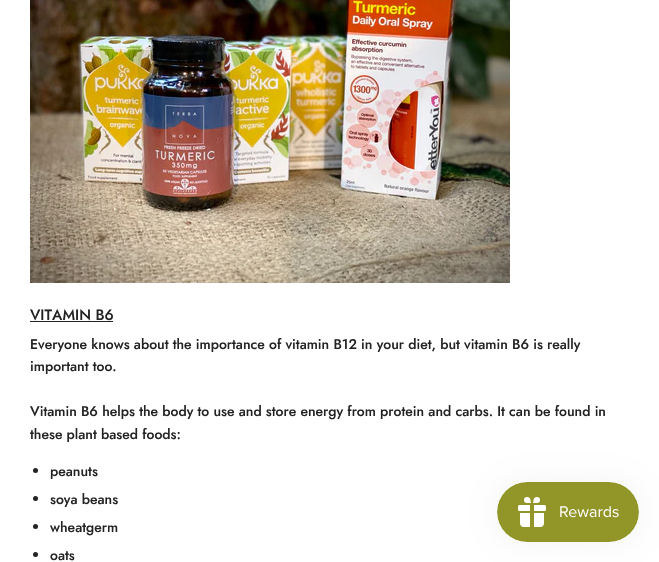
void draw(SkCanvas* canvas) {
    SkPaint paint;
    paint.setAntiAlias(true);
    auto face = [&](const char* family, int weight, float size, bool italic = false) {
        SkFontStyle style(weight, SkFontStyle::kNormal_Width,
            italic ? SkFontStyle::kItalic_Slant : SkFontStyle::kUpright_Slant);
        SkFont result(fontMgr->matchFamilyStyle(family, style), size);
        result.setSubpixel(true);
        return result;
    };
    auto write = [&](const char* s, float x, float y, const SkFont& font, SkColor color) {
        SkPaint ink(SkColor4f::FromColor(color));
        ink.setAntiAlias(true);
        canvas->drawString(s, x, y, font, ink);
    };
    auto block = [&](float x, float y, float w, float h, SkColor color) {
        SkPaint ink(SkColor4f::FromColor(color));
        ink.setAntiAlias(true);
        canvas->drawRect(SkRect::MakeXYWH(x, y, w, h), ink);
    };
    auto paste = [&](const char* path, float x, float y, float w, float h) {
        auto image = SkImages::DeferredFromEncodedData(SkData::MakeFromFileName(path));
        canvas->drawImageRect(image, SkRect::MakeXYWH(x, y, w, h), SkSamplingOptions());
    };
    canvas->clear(SK_ColorWHITE);
    paste("pic1.png", 30, 0, 480, 283);
    auto kFont1 = face("Jost", 500, 15);
    write("VITAMIN B6", 30, 320, kFont1, SkColorSetRGB(35, 35, 35));
    block(30, 321, 83, 1, SkColorSetRGB(35, 35, 35));
    auto kFont2 = face("Jost", 500, 14);
    write("Everyone knows about the importance of vitamin B12 in your diet, but vitamin B6 is really", 30, 349, kFont2, SkColorSetRGB(35, 35, 35));
    write("important too.", 30, 371, kFont2, SkColorSetRGB(35, 35, 35));
    write("Vitamin B6 helps the body to use and store energy from protein and carbs. It can be found in", 30, 416, kFont2, SkColorSetRGB(35, 35, 35));
    write("these plant based foods:", 30, 439, kFont2, SkColorSetRGB(35, 35, 35));
    paint.setColor(SkColorSetRGB(35, 35, 35));
    canvas->drawCircle(35.5f, 470.5f, 2.5f, paint);
    write("peanuts", 50, 476, kFont2, SkColorSetRGB(35, 35, 35));
    canvas->drawCircle(35.5f, 498.5f, 2.5f, paint);
    write("soya beans", 50, 504, kFont2, SkColorSetRGB(35, 35, 35));
    canvas->drawCircle(35.5f, 526.5f, 2.5f, paint);
    write("wheatgerm", 50, 532, kFont2, SkColorSetRGB(35, 35, 35));
    canvas->drawCircle(35.5f, 554.5f, 2.5f, paint);
    write("oats", 50, 560, kFont2, SkColorSetRGB(35, 35, 35));
    paint.setColor(SkColorSetARGB(13, 0, 0, 0));
    paint.setMaskFilter(SkMaskFilter::MakeBlur(kNormal_SkBlurStyle, 12.5f));
    canvas->drawRoundRect(SkRect::MakeXYWH(497, 482, 142, 60), 30, 30, paint);
    paint.setMaskFilter(nullptr);
    paste("pic2.png", 497, 482, 142, 60);
}
